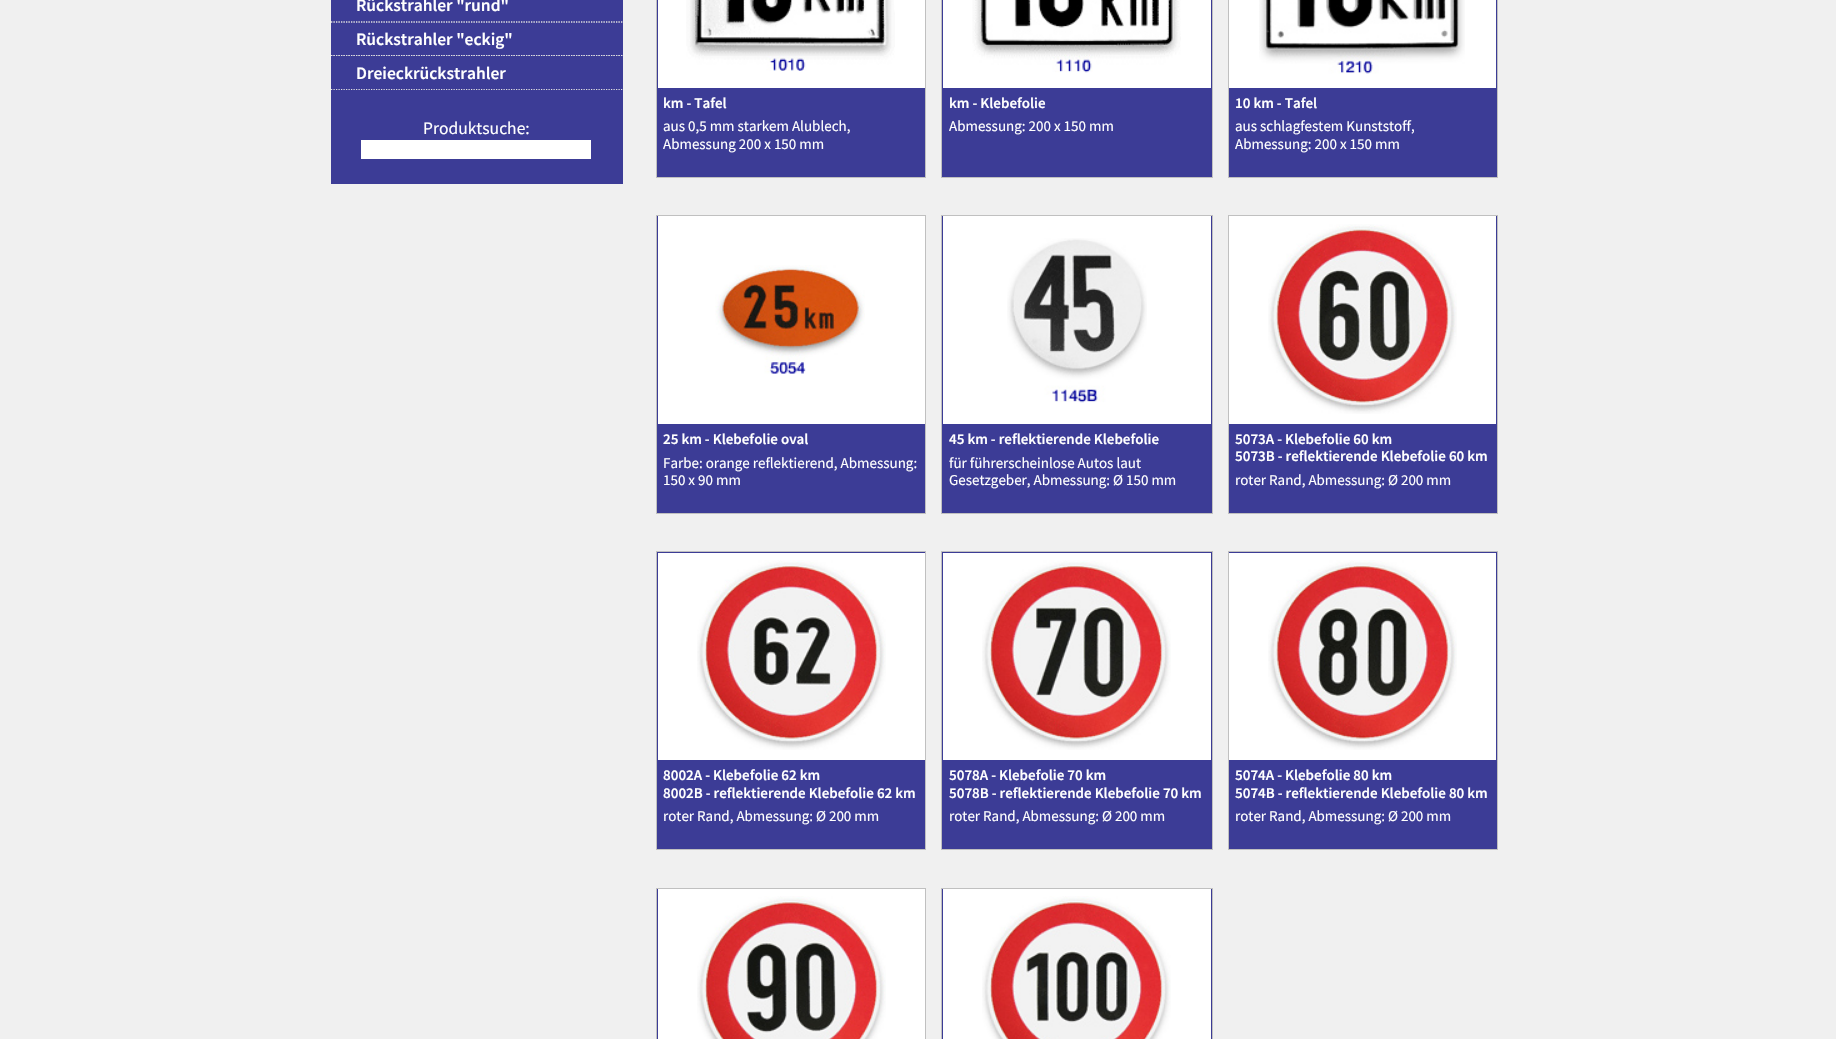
void draw(SkCanvas* canvas) {
    SkPaint paint;
    paint.setAntiAlias(true);
    auto face = [&](const char* family, int weight, float size, bool italic = false) {
        SkFontStyle style(weight, SkFontStyle::kNormal_Width,
            italic ? SkFontStyle::kItalic_Slant : SkFontStyle::kUpright_Slant);
        SkFont result(fontMgr->matchFamilyStyle(family, style), size);
        result.setSubpixel(true);
        return result;
    };
    auto write = [&](const char* s, float x, float y, const SkFont& font, SkColor color) {
        SkPaint ink(SkColor4f::FromColor(color));
        ink.setAntiAlias(true);
        canvas->drawString(s, x, y, font, ink);
    };
    auto block = [&](float x, float y, float w, float h, SkColor color) {
        SkPaint ink(SkColor4f::FromColor(color));
        ink.setAntiAlias(true);
        canvas->drawRect(SkRect::MakeXYWH(x, y, w, h), ink);
    };
    auto paste = [&](const char* path, float x, float y, float w, float h) {
        auto image = SkImages::DeferredFromEncodedData(SkData::MakeFromFileName(path));
        canvas->drawImageRect(image, SkRect::MakeXYWH(x, y, w, h), SkSamplingOptions());
    };
    canvas->clear(SkColorSetRGB(240, 240, 240));
    block(331, 0, 292, 184, SkColorSetRGB(60, 60, 150));
    paint.setStyle(SkPaint::kStroke_Style);
    paint.setStrokeWidth(1.2f);
    paint.setColor(SkColorSetRGB(224, 224, 224));
    paint.setPathEffect(SkDashPathEffect::Make({{1.25f, 1.25f}}, 0));
    canvas->drawPath(SkPathBuilder().moveTo(331, 22).lineTo(622.5f, 22).detach(), paint);
    paint.setPathEffect(nullptr);
    auto kFont1 = face("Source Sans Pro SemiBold", 600, 17.5f);
    write("Rückstrahler \"rund\"", 356, 11, kFont1, SK_ColorWHITE);
    paint.setPathEffect(SkDashPathEffect::Make({{1.25f, 1.25f}}, 0));
    canvas->drawPath(SkPathBuilder().moveTo(331, 22).lineTo(622.5f, 22).detach(), paint);
    paint.setPathEffect(nullptr);
    paint.setPathEffect(SkDashPathEffect::Make({{1.25f, 1.25f}}, 0));
    canvas->drawPath(SkPathBuilder().moveTo(331, 55.5f).lineTo(622.5f, 55.5f).detach(), paint);
    paint.setPathEffect(nullptr);
    write("Rückstrahler \"eckig\"", 356, 45, kFont1, SK_ColorWHITE);
    paint.setPathEffect(SkDashPathEffect::Make({{1.25f, 1.25f}}, 0));
    canvas->drawPath(SkPathBuilder().moveTo(331, 55.5f).lineTo(622.5f, 55.5f).detach(), paint);
    paint.setPathEffect(nullptr);
    paint.setPathEffect(SkDashPathEffect::Make({{1.25f, 1.25f}}, 0));
    canvas->drawPath(SkPathBuilder().moveTo(331, 89.5f).lineTo(622.5f, 89.5f).detach(), paint);
    paint.setPathEffect(nullptr);
    write("Dreieckrückstrahler", 356, 79, kFont1, SK_ColorWHITE);
    auto kFont2 = face("Source Sans Pro", 400, 17.5f);
    write("Produktsuche:", 423, 134, kFont2, SK_ColorWHITE);
    block(361, 140, 230, 19, SK_ColorWHITE);
    paint.setStyle(SkPaint::kFill_Style);
    paint.setColor(SkColorSetRGB(60, 60, 150));
    canvas->drawRect(SkRect::MakeXYWH(656.5f, -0.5f, 269, 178), paint);
    paint.setStyle(SkPaint::kStroke_Style);
    paint.setStrokeWidth(1);
    paint.setColor(SkColorSetRGB(192, 192, 192));
    canvas->drawRect(SkRect::MakeXYWH(656.5f, -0.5f, 269, 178), paint);
    block(658, 0, 267, 88, SK_ColorWHITE);
    paste("pic1.png", 686, 0, 209, 71);
    auto kFont3 = face("Source Sans Pro SemiBold", 600, 15);
    write("km - Tafel", 663, 108, kFont3, SK_ColorWHITE);
    auto kFont4 = face("Source Sans Pro", 400, 15);
    write("aus 0,5 mm starkem Alublech,", 663, 131, kFont4, SK_ColorWHITE);
    write("Abmessung 200 x 150 mm", 663, 149, kFont4, SK_ColorWHITE);
    paint.setStyle(SkPaint::kFill_Style);
    paint.setColor(SkColorSetRGB(60, 60, 150));
    canvas->drawRect(SkRect::MakeXYWH(941.5f, -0.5f, 271, 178), paint);
    paint.setStyle(SkPaint::kStroke_Style);
    paint.setColor(SkColorSetRGB(192, 192, 192));
    canvas->drawRect(SkRect::MakeXYWH(941.5f, -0.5f, 271, 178), paint);
    block(943, 0, 268, 88, SK_ColorWHITE);
    paste("pic2.png", 972, 0, 209, 73);
    write("km - Klebefolie", 949, 108, kFont3, SK_ColorWHITE);
    write("Abmessung: 200 x 150 mm", 949, 131, kFont4, SK_ColorWHITE);
    paint.setStyle(SkPaint::kFill_Style);
    paint.setColor(SkColorSetRGB(60, 60, 150));
    canvas->drawRect(SkRect::MakeXYWH(1228.5f, -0.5f, 269, 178), paint);
    paint.setStyle(SkPaint::kStroke_Style);
    paint.setColor(SkColorSetRGB(192, 192, 192));
    canvas->drawRect(SkRect::MakeXYWH(1228.5f, -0.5f, 269, 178), paint);
    block(1229, 0, 267, 88, SK_ColorWHITE);
    paste("pic3.png", 1259, 0, 206, 74);
    write("10 km - Tafel", 1235, 108, kFont3, SK_ColorWHITE);
    write("aus schlagfestem Kunststoff,", 1235, 131, kFont4, SK_ColorWHITE);
    write("Abmessung: 200 x 150 mm", 1235, 149, kFont4, SK_ColorWHITE);
    paint.setStyle(SkPaint::kFill_Style);
    paint.setColor(SkColorSetRGB(60, 60, 150));
    canvas->drawRect(SkRect::MakeXYWH(656.5f, 215.5f, 269, 298), paint);
    paint.setStyle(SkPaint::kStroke_Style);
    paint.setColor(SkColorSetRGB(192, 192, 192));
    canvas->drawRect(SkRect::MakeXYWH(656.5f, 215.5f, 269, 298), paint);
    block(658, 216, 267, 208, SK_ColorWHITE);
    paste("pic4.png", 715, 265, 150, 109);
    write("25 km - Klebefolie oval", 663, 444, kFont3, SK_ColorWHITE);
    write("Farbe: orange reflektierend, Abmessung:", 663, 468, kFont4, SK_ColorWHITE);
    write("150 x 90 mm", 663, 485, kFont4, SK_ColorWHITE);
    paint.setStyle(SkPaint::kFill_Style);
    paint.setColor(SkColorSetRGB(60, 60, 150));
    canvas->drawRect(SkRect::MakeXYWH(941.5f, 215.5f, 271, 298), paint);
    paint.setStyle(SkPaint::kStroke_Style);
    paint.setColor(SkColorSetRGB(192, 192, 192));
    canvas->drawRect(SkRect::MakeXYWH(941.5f, 215.5f, 271, 298), paint);
    block(943, 216, 268, 208, SK_ColorWHITE);
    paste("pic5.png", 1007, 238, 140, 165);
    write("45 km - reflektierende Klebefolie", 949, 444, kFont3, SK_ColorWHITE);
    write("für führerscheinlose Autos laut", 949, 468, kFont4, SK_ColorWHITE);
    write("Gesetzgeber, Abmessung: Ø 150 mm", 949, 485, kFont4, SK_ColorWHITE);
    paint.setStyle(SkPaint::kFill_Style);
    paint.setColor(SkColorSetRGB(60, 60, 150));
    canvas->drawRect(SkRect::MakeXYWH(1228.5f, 215.5f, 269, 298), paint);
    paint.setStyle(SkPaint::kStroke_Style);
    paint.setColor(SkColorSetRGB(192, 192, 192));
    canvas->drawRect(SkRect::MakeXYWH(1228.5f, 215.5f, 269, 298), paint);
    block(1229, 216, 267, 208, SK_ColorWHITE);
    paste("pic6.png", 1268, 224, 189, 190);
    write("5073A - Klebefolie 60 km", 1235, 444, kFont3, SK_ColorWHITE);
    write("5073B - reflektierende Klebefolie 60 km", 1235, 461, kFont3, SK_ColorWHITE);
    write("roter Rand, Abmessung: Ø 200 mm", 1235, 485, kFont4, SK_ColorWHITE);
    paint.setStyle(SkPaint::kFill_Style);
    paint.setColor(SkColorSetRGB(60, 60, 150));
    canvas->drawRect(SkRect::MakeXYWH(656.5f, 551.5f, 269, 298), paint);
    paint.setStyle(SkPaint::kStroke_Style);
    paint.setColor(SkColorSetRGB(192, 192, 192));
    canvas->drawRect(SkRect::MakeXYWH(656.5f, 551.5f, 269, 298), paint);
    block(658, 553, 267, 207, SK_ColorWHITE);
    paste("pic7.png", 697, 560, 189, 190);
    write("8002A - Klebefolie 62 km", 663, 780, kFont3, SK_ColorWHITE);
    write("8002B - reflektierende Klebefolie 62 km", 663, 798, kFont3, SK_ColorWHITE);
    write("roter Rand, Abmessung: Ø 200 mm", 663, 821, kFont4, SK_ColorWHITE);
    paint.setStyle(SkPaint::kFill_Style);
    paint.setColor(SkColorSetRGB(60, 60, 150));
    canvas->drawRect(SkRect::MakeXYWH(941.5f, 551.5f, 271, 298), paint);
    paint.setStyle(SkPaint::kStroke_Style);
    paint.setColor(SkColorSetRGB(192, 192, 192));
    canvas->drawRect(SkRect::MakeXYWH(941.5f, 551.5f, 271, 298), paint);
    block(943, 553, 268, 207, SK_ColorWHITE);
    paste("pic8.png", 982, 560, 189, 190);
    write("5078A - Klebefolie 70 km", 949, 780, kFont3, SK_ColorWHITE);
    write("5078B - reflektierende Klebefolie 70 km", 949, 798, kFont3, SK_ColorWHITE);
    write("roter Rand, Abmessung: Ø 200 mm", 949, 821, kFont4, SK_ColorWHITE);
    paint.setStyle(SkPaint::kFill_Style);
    paint.setColor(SkColorSetRGB(60, 60, 150));
    canvas->drawRect(SkRect::MakeXYWH(1228.5f, 551.5f, 269, 298), paint);
    paint.setStyle(SkPaint::kStroke_Style);
    paint.setColor(SkColorSetRGB(192, 192, 192));
    canvas->drawRect(SkRect::MakeXYWH(1228.5f, 551.5f, 269, 298), paint);
    block(1229, 553, 267, 207, SK_ColorWHITE);
    paste("pic9.png", 1268, 560, 189, 190);
    write("5074A - Klebefolie 80 km", 1235, 780, kFont3, SK_ColorWHITE);
    write("5074B - reflektierende Klebefolie 80 km", 1235, 798, kFont3, SK_ColorWHITE);
    write("roter Rand, Abmessung: Ø 200 mm", 1235, 821, kFont4, SK_ColorWHITE);
    block(657, 889, 1, 150, SkColorSetRGB(60, 60, 150));
    canvas->drawRect(SkRect::MakeXYWH(656.5f, 888.5f, 269, 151), paint);
    block(658, 889, 267, 150, SK_ColorWHITE);
    paste("pic10.png", 697, 896, 189, 143);
    paint.setStyle(SkPaint::kFill_Style);
    paint.setColor(SkColorSetRGB(60, 60, 150));
    canvas->drawRect(SkRect::MakeXYWH(941.5f, 888.5f, 271, 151), paint);
    paint.setStyle(SkPaint::kStroke_Style);
    paint.setColor(SkColorSetRGB(192, 192, 192));
    canvas->drawRect(SkRect::MakeXYWH(941.5f, 888.5f, 271, 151), paint);
    block(943, 889, 268, 150, SK_ColorWHITE);
    paste("pic11.png", 982, 896, 189, 143);
}
